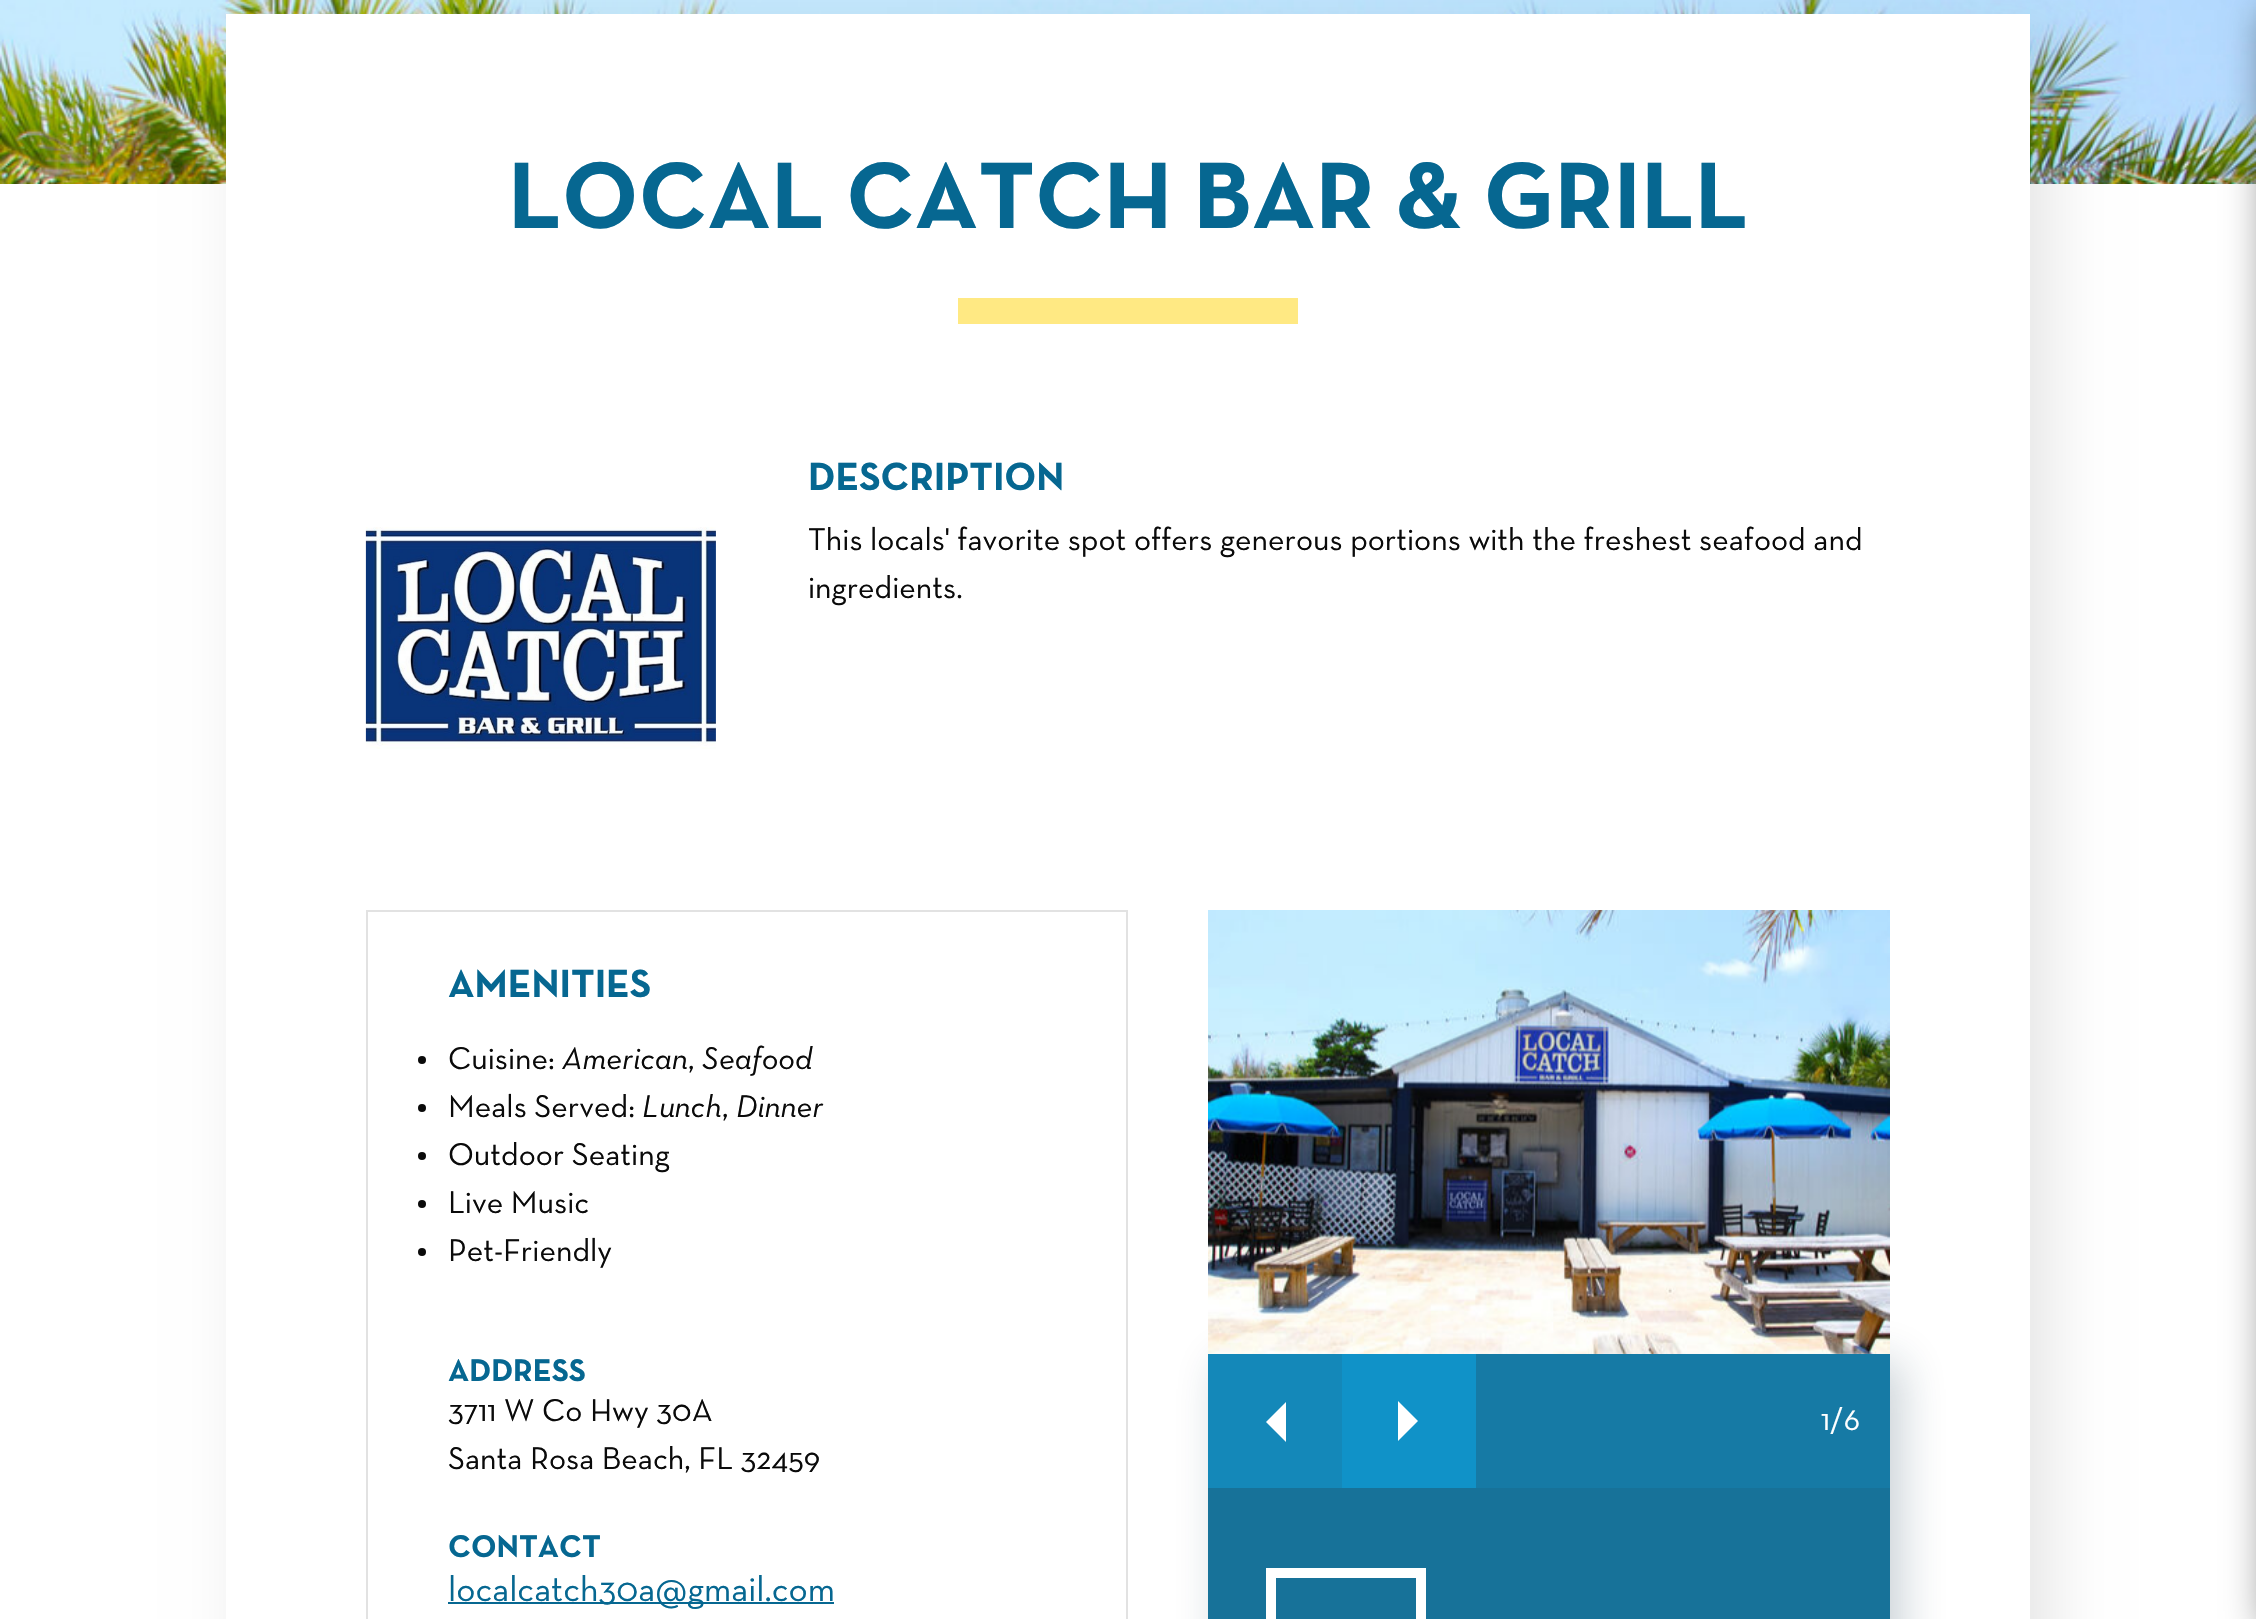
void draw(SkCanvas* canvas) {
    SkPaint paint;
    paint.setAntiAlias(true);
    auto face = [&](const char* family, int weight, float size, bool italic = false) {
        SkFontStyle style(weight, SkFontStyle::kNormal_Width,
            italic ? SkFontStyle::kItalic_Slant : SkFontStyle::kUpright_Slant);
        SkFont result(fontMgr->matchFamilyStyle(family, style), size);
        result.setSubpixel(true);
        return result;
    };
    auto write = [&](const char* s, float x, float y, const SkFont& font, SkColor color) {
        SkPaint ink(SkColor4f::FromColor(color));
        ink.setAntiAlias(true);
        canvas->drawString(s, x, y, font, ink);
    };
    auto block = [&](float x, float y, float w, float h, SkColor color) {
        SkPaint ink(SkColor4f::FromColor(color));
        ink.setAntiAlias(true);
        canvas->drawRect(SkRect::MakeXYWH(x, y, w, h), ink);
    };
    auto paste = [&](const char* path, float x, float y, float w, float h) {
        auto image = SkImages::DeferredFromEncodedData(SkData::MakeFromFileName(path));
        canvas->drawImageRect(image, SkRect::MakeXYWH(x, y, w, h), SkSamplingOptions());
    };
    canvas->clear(SK_ColorWHITE);
    paste("pic1.png", 0, 0, 2256, 184);
    paint.setColor(SkColorSetARGB(26, 0, 0, 0));
    paint.setMaskFilter(SkMaskFilter::MakeBlur(kNormal_SkBlurStyle, 30));
    canvas->drawRect(SkRect::MakeXYWH(246, 34, 1804, 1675), paint);
    paint.setMaskFilter(nullptr);
    block(226, 14, 1804, 1605, SK_ColorWHITE);
    auto kFont1 = face("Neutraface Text", 700, 96);
    write("LOCAL CATCH BAR & GRILL", 508, 228, kFont1, SkColorSetRGB(6, 103, 145));
    block(958, 298, 340, 26, SkColorSetRGB(255, 233, 131));
    paste("pic2.png", 365, 527, 351, 222);
    auto kFont2 = face("Neutraface Text", 700, 40);
    write("DESCRIPTION", 808, 490, kFont2, SkColorSetRGB(6, 103, 145));
    auto kFont3 = face("Neutraface Text", 400, 32);
    write("This locals' favorite spot offers generous portions with the freshest seafood and", 808, 550, kFont3, SkColorSetRGB(10, 10, 10));
    write("ingredients.", 808, 598, kFont3, SkColorSetRGB(10, 10, 10));
    paint.setStyle(SkPaint::kStroke_Style);
    paint.setStrokeWidth(2);
    paint.setColor(SkColorSetRGB(226, 226, 226));
    canvas->drawRect(SkRect::MakeXYWH(367, 911, 760, 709), paint);
    write("AMENITIES", 448, 997, kFont2, SkColorSetRGB(6, 103, 145));
    paint.setStyle(SkPaint::kFill_Style);
    paint.setColor(SkColorSetRGB(10, 10, 10));
    canvas->drawCircle(422, 1060, 4, paint);
    write("Cuisine:", 448, 1069, kFont3, SkColorSetRGB(10, 10, 10));
    auto kFont4 = face("Neutraface Text", 400, 32, true);
    write("American", 562, 1069, kFont4, SkColorSetRGB(10, 10, 10));
    write("Seafood", 702, 1069, kFont4, SkColorSetRGB(10, 10, 10));
    write(",", 688, 1069, kFont3, SkColorSetRGB(10, 10, 10));
    canvas->drawCircle(422, 1108, 4, paint);
    write("Meals Served:", 448, 1117, kFont3, SkColorSetRGB(10, 10, 10));
    write("Lunch", 642, 1117, kFont4, SkColorSetRGB(10, 10, 10));
    write("Dinner", 736, 1117, kFont4, SkColorSetRGB(10, 10, 10));
    write(",", 722, 1117, kFont3, SkColorSetRGB(10, 10, 10));
    canvas->drawCircle(422, 1156, 4, paint);
    write("Outdoor Seating", 448, 1165, kFont3, SkColorSetRGB(10, 10, 10));
    canvas->drawCircle(422, 1204, 4, paint);
    write("Live Music", 448, 1213, kFont3, SkColorSetRGB(10, 10, 10));
    canvas->drawCircle(422, 1252, 4, paint);
    write("Pet-Friendly", 448, 1261, kFont3, SkColorSetRGB(10, 10, 10));
    auto kFont5 = face("Neutraface Text", 700, 32);
    write("ADDRESS", 448, 1381, kFont5, SkColorSetRGB(6, 103, 145));
    write("3711 W Co Hwy 30A", 448, 1421, kFont3, SkColorSetRGB(10, 10, 10));
    write("Santa Rosa Beach, FL 32459", 448, 1469, kFont3, SkColorSetRGB(10, 10, 10));
    write("CONTACT", 448, 1557, kFont5, SkColorSetRGB(6, 103, 145));
    block(448, 1602, 386, 2, SkColorSetRGB(6, 103, 145));
    auto kFont6 = face("Neutraface Text", 400, 36);
    write("localcatch30a@gmail.com", 448, 1601, kFont6, SkColorSetRGB(6, 103, 145));
    paint.setColor(SkColorSetARGB(59, 20, 55, 78));
    paint.setMaskFilter(SkMaskFilter::MakeBlur(kNormal_SkBlurStyle, 21));
    canvas->drawRect(SkRect::MakeXYWH(1220, 1362, 682, 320), paint);
    paint.setMaskFilter(nullptr);
    paste("pic3.png", 1208, 910, 682, 444);
    block(1208, 1488, 682, 131, SkColorSetRGB(23, 114, 153));
    block(1476, 1354, 414, 134, SkColorSetRGB(22, 122, 165));
    block(1208, 1354, 134, 134, SkColorSetRGB(20, 136, 185));
    paint.setColor(SK_ColorWHITE);
    canvas->drawPath(SkPathBuilder().moveTo(1286, 1402).lineTo(1286, 1442).lineTo(1266, 1422).close().detach(), paint);
    block(1342, 1354, 134, 134, SkColorSetRGB(16, 146, 200));
    canvas->drawPath(SkPathBuilder().moveTo(1398, 1441).lineTo(1398, 1401).lineTo(1418, 1421).close().detach(), paint);
    write("1/6", 1821, 1430, kFont3, SK_ColorWHITE);
    paint.setStyle(SkPaint::kStroke_Style);
    paint.setStrokeWidth(10);
    canvas->drawRect(SkRect::MakeXYWH(1271, 1573, 150, 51), paint);
    paint.setStyle(SkPaint::kFill_Style);
    paint.setColor(SkColorSetARGB(128, 0, 0, 0));
    paint.setMaskFilter(SkMaskFilter::MakeBlur(kNormal_SkBlurStyle, 20));
    canvas->drawRect(SkRect::MakeXYWH(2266, 10, 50, 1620), paint);
    paint.setMaskFilter(nullptr);
}
